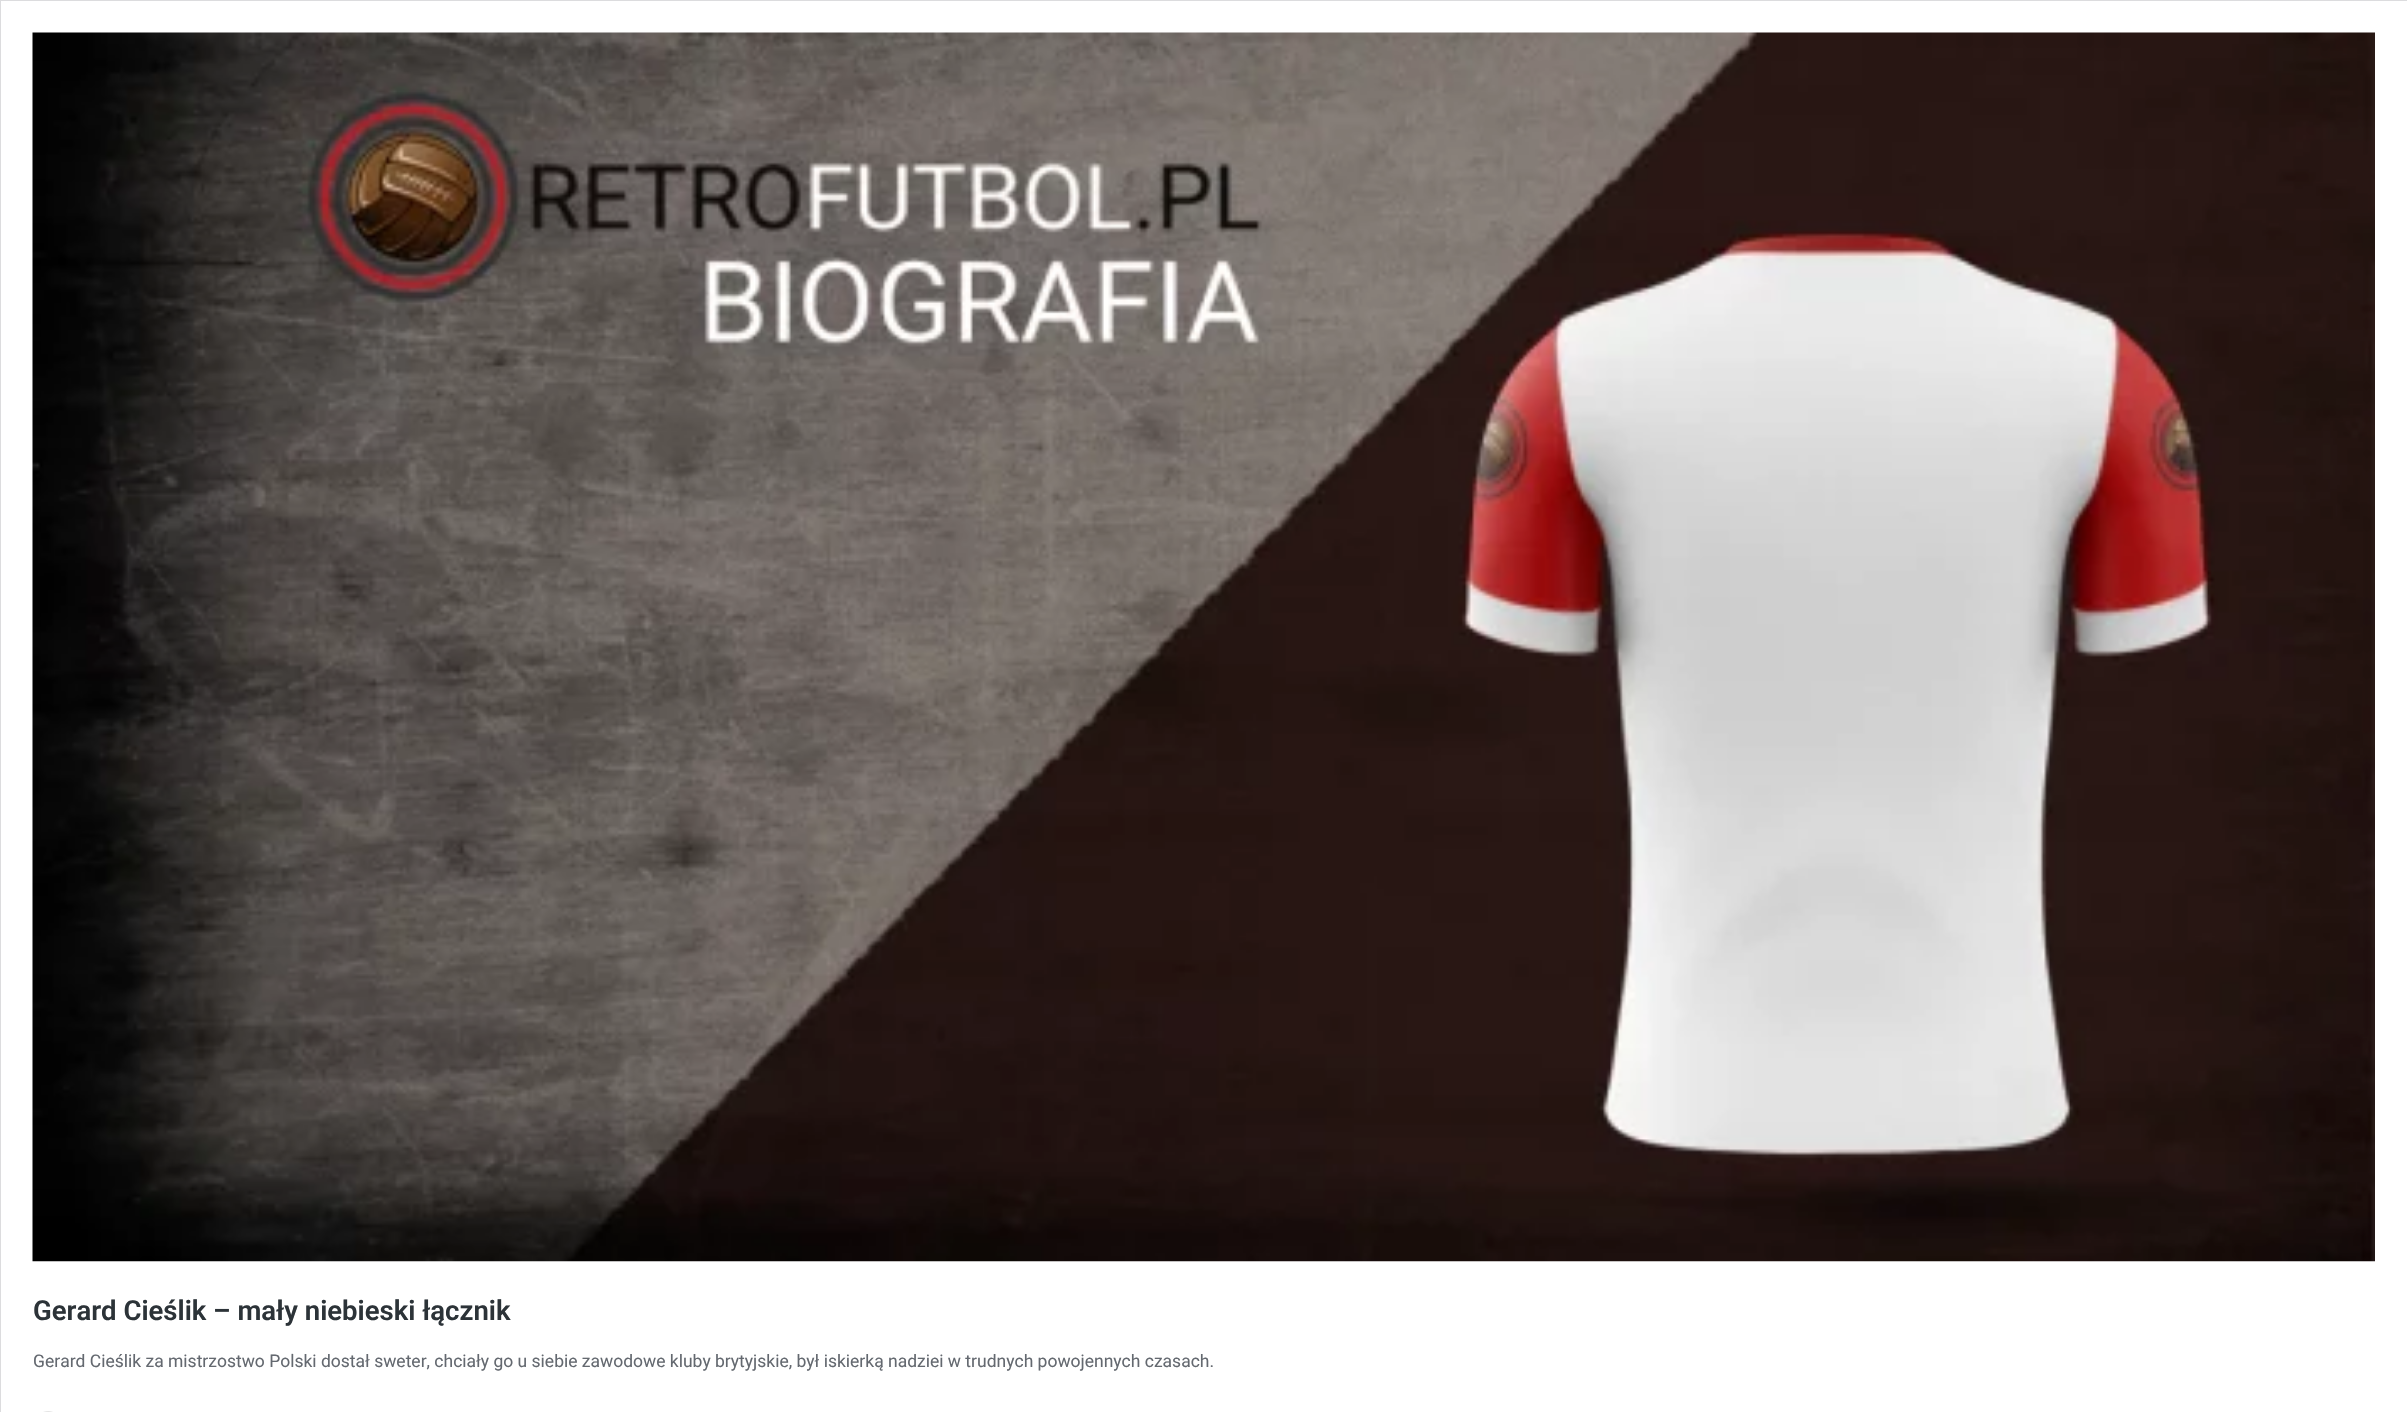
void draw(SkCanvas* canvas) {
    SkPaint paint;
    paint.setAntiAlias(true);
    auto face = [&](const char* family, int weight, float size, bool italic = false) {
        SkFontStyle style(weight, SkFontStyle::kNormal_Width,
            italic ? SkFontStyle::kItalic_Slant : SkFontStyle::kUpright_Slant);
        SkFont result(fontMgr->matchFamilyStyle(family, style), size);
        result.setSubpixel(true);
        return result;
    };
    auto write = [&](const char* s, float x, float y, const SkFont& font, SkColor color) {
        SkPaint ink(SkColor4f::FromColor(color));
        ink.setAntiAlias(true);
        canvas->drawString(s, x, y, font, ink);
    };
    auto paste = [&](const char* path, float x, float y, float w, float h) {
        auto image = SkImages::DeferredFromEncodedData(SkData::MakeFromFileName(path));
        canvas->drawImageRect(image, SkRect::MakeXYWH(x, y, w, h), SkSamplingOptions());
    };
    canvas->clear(SK_ColorWHITE);
    paint.setStyle(SkPaint::kStroke_Style);
    paint.setStrokeWidth(1);
    paint.setColor(SkColorSetRGB(220, 220, 222));
    canvas->drawRect(SkRect::MakeXYWH(0.5f, 0.5f, 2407, 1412), paint);
    paste("pic1.png", 32, 32, 2343, 1230);
    auto kFont1 = face("Roboto", 600, 27.5f);
    write("Gerard Cieślik – mały niebieski łącznik", 33, 1320, kFont1, SkColorSetRGB(44, 51, 56));
    auto kFont2 = face("Roboto", 400, 17.5f);
    write("Gerard Cieślik za mistrzostwo Polski dostał sweter, chciały go u siebie zawodowe kluby brytyjskie, był iskierką nadziei w trudnych powojennych czasach.", 33, 1367, kFont2, SkColorSetRGB(100, 105, 112));
    paste("pic2.png", 43, 1411, 10, 1);
}
